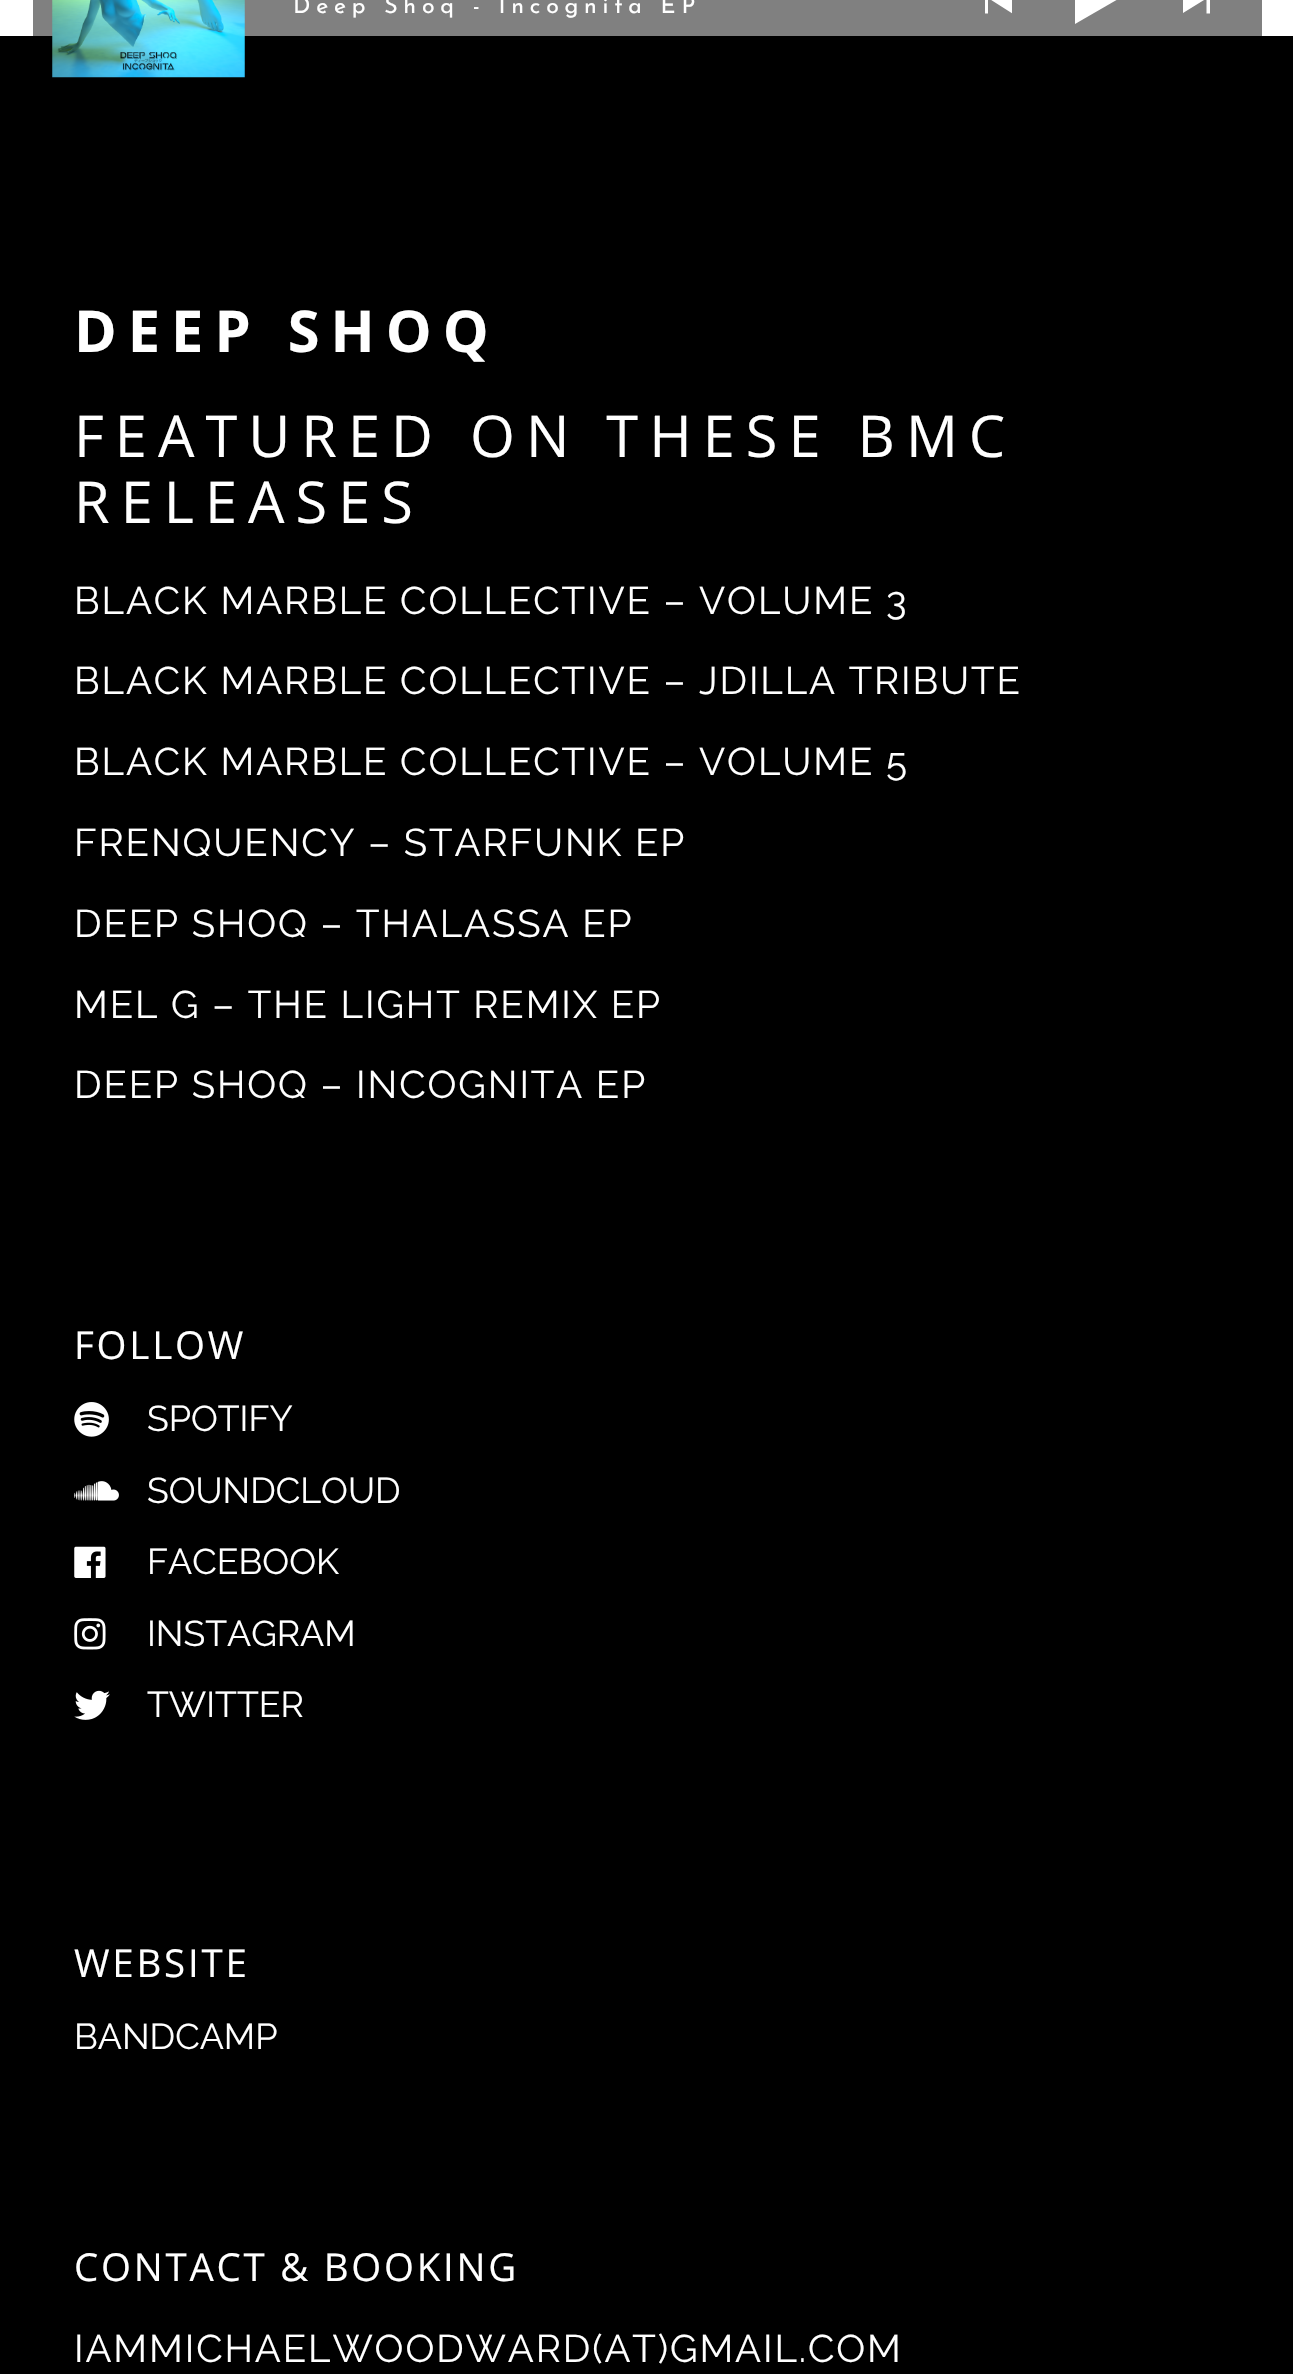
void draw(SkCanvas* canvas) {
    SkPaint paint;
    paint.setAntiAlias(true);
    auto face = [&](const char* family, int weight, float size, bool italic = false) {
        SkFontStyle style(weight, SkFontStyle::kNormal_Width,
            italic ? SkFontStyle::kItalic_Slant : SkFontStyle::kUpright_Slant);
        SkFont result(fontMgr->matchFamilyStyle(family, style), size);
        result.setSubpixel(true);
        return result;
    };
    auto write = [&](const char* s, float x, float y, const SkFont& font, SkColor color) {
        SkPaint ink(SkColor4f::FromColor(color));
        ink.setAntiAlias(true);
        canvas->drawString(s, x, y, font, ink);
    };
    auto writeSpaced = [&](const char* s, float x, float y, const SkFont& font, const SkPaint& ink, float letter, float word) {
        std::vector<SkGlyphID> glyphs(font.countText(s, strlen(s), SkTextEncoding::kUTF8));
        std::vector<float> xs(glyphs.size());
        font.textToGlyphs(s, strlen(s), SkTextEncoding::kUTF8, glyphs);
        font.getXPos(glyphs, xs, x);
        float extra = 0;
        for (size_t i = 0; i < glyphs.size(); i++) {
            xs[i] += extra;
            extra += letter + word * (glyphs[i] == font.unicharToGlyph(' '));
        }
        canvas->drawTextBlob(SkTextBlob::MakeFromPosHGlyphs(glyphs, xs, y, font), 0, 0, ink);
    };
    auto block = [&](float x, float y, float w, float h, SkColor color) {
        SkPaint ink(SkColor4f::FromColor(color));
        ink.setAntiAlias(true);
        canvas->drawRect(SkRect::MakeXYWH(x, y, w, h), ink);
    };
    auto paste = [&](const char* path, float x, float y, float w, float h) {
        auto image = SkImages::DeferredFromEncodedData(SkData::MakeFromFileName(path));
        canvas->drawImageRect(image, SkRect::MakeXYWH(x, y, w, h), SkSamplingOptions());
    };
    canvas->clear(SK_ColorBLACK);
    block(0, 0, 1293, 36, SK_ColorWHITE);
    block(33, 0, 1229, 36, SkColorSetRGB(128, 128, 128));
    paste("pic1.png", 52, 0, 193, 78);
    auto kFont1 = face("Josefin Sans", 400, 23.1f);
    paint.setColor(SK_ColorWHITE);
    writeSpaced("Deep Shoq - Incognita EP", 293, 13, kFont1, paint, 5.75f, 0);
    canvas->save();
    canvas->clipRect(SkRect::MakeXYWH(985, 0, 27, 14));
    canvas->drawPath(SkPathBuilder().moveTo(1012.5f, -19.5f).lineTo(988, -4.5f).lineTo(988, -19.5f).lineTo(984, -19.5f).lineTo(984, 13.5f).lineTo(988, 13.5f).lineTo(988, -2).lineTo(1012.5f, 13.5f).close().detach(), paint);
    canvas->restore();
    canvas->drawPath(SkPathBuilder().moveTo(1075, -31).lineTo(1120, -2).lineTo(1075, 24).close().detach(), paint);
    canvas->save();
    canvas->clipRect(SkRect::MakeXYWH(1183, 0, 27, 14));
    canvas->drawPath(SkPathBuilder().moveTo(1182, 13.5f).lineTo(1206.5f, -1.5f).lineTo(1206.5f, 13.5f).lineTo(1210.5f, 13.5f).lineTo(1210.5f, -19.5f).lineTo(1206.5f, -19.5f).lineTo(1206.5f, -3.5f).lineTo(1182, -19.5f).close().detach(), paint);
    canvas->restore();
    auto kFont2 = face("Open Sans", 700, 57.75f);
    writeSpaced("DEEP SHOQ", 74, 352, kFont2, paint, 11, 0);
    auto kFont3 = face("Open Sans", 400, 57.75f);
    writeSpaced("FEATURED ON THESE BMC", 74, 457, kFont3, paint, 11, 0);
    writeSpaced("RELEASES", 74, 523, kFont3, paint, 11, 0);
    auto kFont4 = face("Raleway", 100, 38.5f);
    writeSpaced("BLACK MARBLE COLLECTIVE – VOLUME 3", 74, 614, kFont4, paint, 1.9f, 0);
    writeSpaced("BLACK MARBLE COLLECTIVE – JDILLA TRIBUTE", 74, 694, kFont4, paint, 1.9f, 0);
    writeSpaced("BLACK MARBLE COLLECTIVE – VOLUME 5", 74, 775, kFont4, paint, 1.9f, 0);
    writeSpaced("FRENQUENCY – STARFUNK EP", 74, 856, kFont4, paint, 1.9f, 0);
    writeSpaced("DEEP SHOQ – THALASSA EP", 74, 937, kFont4, paint, 1.9f, 0);
    writeSpaced("MEL G – THE LIGHT REMIX EP", 74, 1018, kFont4, paint, 1.9f, 0);
    writeSpaced("DEEP SHOQ – INCOGNITA EP", 74, 1098, kFont4, paint, 1.9f, 0);
    auto kFont5 = face("Open Sans", 400, 38.5f);
    writeSpaced("FOLLOW", 74, 1359, kFont5, paint, 2.75f, 0);
    paste("pic2.png", 74, 1402, 35, 35);
    auto kFont6 = face("Raleway", 100, 35.75f);
    write("SPOTIFY", 147, 1431, kFont6, SK_ColorWHITE);
    paste("pic3.png", 74, 1481, 45, 20);
    write("SOUNDCLOUD", 147, 1503, kFont6, SK_ColorWHITE);
    paste("pic4.png", 74, 1546, 32, 32);
    write("FACEBOOK", 147, 1574, kFont6, SK_ColorWHITE);
    paste("pic5.png", 74, 1618, 32, 32);
    write("INSTAGRAM", 147, 1646, kFont6, SK_ColorWHITE);
    paste("pic6.png", 74, 1690, 36, 30);
    write("TWITTER", 147, 1717, kFont6, SK_ColorWHITE);
    writeSpaced("WEBSITE", 74, 1977, kFont5, paint, 2.75f, 0);
    write("BANDCAMP", 74, 2049, kFont6, SK_ColorWHITE);
    writeSpaced("CONTACT & BOOKING", 74, 2281, kFont5, paint, 2.75f, 0);
    writeSpaced("IAMMICHAELWOODWARD(AT)GMAIL.COM", 74, 2362, kFont4, paint, 1.9f, 0);
}
